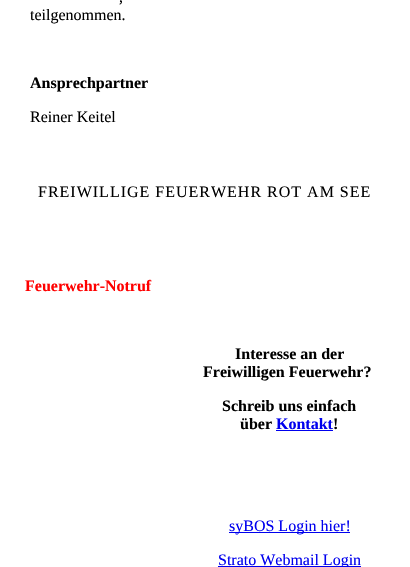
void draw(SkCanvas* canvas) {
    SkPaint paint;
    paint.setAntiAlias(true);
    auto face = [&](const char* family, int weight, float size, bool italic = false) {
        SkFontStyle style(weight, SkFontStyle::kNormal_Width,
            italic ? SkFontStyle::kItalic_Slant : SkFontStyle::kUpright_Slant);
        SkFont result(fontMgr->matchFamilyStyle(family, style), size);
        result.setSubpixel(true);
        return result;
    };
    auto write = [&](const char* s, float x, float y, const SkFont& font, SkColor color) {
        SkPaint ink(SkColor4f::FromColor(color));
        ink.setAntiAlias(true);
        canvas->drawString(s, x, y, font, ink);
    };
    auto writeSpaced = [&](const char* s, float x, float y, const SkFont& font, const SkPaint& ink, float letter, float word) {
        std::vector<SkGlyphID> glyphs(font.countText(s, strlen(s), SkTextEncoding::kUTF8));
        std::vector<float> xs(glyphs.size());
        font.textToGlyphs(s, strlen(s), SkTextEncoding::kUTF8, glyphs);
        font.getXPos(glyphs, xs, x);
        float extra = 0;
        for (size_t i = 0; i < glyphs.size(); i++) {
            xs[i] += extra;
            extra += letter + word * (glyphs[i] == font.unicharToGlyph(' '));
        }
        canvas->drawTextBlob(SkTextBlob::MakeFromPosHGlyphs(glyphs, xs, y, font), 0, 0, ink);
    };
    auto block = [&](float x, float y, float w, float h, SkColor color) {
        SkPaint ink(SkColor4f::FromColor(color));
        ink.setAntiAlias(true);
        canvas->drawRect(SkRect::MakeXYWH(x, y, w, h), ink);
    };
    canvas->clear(SK_ColorWHITE);
    auto kFont1 = face("Liberation Serif", 400, 16);
    paint.setColor(SK_ColorBLACK);
    writeSpaced(",", 119, 2, kFont1, paint, 0, 15);
    write("teilgenommen.", 30, 20, kFont1, SK_ColorBLACK);
    auto kFont2 = face("Liberation Serif", 700, 16);
    write("Ansprechpartner", 30, 88, kFont2, SK_ColorBLACK);
    write("Reiner Keitel", 30, 122, kFont1, SK_ColorBLACK);
    writeSpaced("FREIWILLIGE FEUERWEHR ROT AM SEE", 38, 197, kFont1, paint, 1, 0);
    write("Feuerwehr-Notruf", 25, 291, kFont2, SkColorSetRGB(255, 0, 0));
    write("Interesse an der", 235, 359, kFont2, SK_ColorBLACK);
    write("Freiwilligen Feuerwehr?", 203, 377, kFont2, SK_ColorBLACK);
    write("Schreib uns einfach", 222, 411, kFont2, SK_ColorBLACK);
    write("über", 240, 429, kFont2, SK_ColorBLACK);
    write("Kontakt", 276, 429, kFont2, SkColorSetRGB(0, 0, 238));
    block(276, 430, 57, 1, SkColorSetRGB(0, 0, 238));
    write("!", 333, 429, kFont2, SK_ColorBLACK);
    block(229, 532, 121, 1, SkColorSetRGB(0, 0, 238));
    write("syBOS Login hier!", 229, 531, kFont1, SkColorSetRGB(0, 0, 238));
    block(218, 566, 143, 1, SkColorSetRGB(0, 0, 238));
    write("Strato Webmail Login", 218, 565, kFont1, SkColorSetRGB(0, 0, 238));
}
